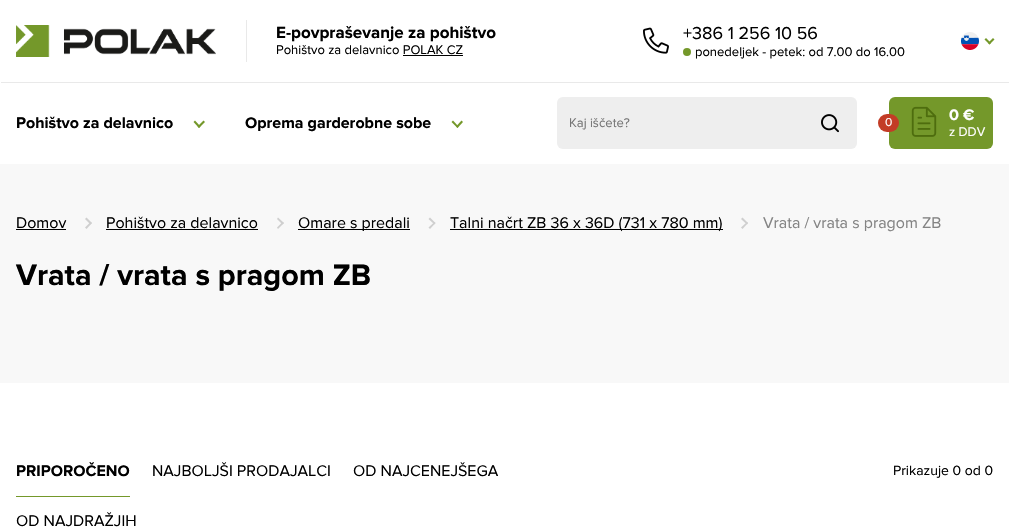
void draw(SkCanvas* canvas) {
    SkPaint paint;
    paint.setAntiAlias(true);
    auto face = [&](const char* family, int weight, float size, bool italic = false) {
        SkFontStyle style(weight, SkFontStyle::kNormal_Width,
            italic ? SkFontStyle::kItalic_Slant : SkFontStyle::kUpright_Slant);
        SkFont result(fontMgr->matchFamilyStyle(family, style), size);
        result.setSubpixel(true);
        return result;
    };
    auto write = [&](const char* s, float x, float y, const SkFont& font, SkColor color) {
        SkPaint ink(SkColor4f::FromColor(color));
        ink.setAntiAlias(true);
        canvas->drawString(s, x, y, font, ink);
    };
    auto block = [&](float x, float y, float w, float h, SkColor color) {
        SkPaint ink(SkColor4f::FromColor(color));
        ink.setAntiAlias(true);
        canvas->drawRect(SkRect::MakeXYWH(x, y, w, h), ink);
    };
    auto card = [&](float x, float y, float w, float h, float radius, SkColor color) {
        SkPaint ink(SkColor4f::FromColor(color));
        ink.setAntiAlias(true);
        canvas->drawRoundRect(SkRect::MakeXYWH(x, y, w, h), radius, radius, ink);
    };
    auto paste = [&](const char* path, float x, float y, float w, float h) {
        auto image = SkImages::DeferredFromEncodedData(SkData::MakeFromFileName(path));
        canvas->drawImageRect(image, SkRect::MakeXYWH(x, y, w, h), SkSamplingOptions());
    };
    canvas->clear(SK_ColorWHITE);
    paste("pic1.png", 16, 25, 200, 32);
    block(246, 20, 1, 42, SkColorSetRGB(233, 233, 233));
    auto kFont1 = face("Proxima Nova", 700, 17);
    write("E-povpraševanje za pohištvo", 276, 38, kFont1, SK_ColorBLACK);
    auto kFont2 = face("Proxima Nova", 400, 13);
    write("Pohištvo za delavnico POLAK CZ", 276, 54, kFont2, SK_ColorBLACK);
    block(403, 55, 60, 1, SK_ColorBLACK);
    paste("pic2.png", 643, 27, 26, 27);
    auto kFont3 = face("Proxima Nova", 400, 18);
    write("+386 1 256 10 56", 683, 39, kFont3, SK_ColorBLACK);
    paint.setColor(SkColorSetRGB(116, 152, 42));
    canvas->drawCircle(687, 52, 4, paint);
    write("ponedeljek - petek: od 7.00 do 16.00", 695, 56, kFont2, SK_ColorBLACK);
    paste("pic3.png", 961, 32, 18, 18);
    canvas->drawPath(SkPathBuilder().moveTo(994.5f, 39.5f).lineTo(989.5f, 44.5f).lineTo(988, 43).lineTo(993, 38).close().detach(), paint);
    canvas->drawPath(SkPathBuilder().moveTo(991, 43).lineTo(989.5f, 44.5f).lineTo(984.5f, 39.5f).lineTo(986, 38).close().detach(), paint);
    block(1, 82, 1008, 1, SkColorSetRGB(233, 233, 233));
    auto kFont4 = face("Proxima Nova", 700, 16);
    write("Pohištvo za delavnico", 16, 128, kFont4, SK_ColorBLACK);
    canvas->drawPath(SkPathBuilder().moveTo(205, 122).lineTo(199, 128).lineTo(197.5f, 126.5f).lineTo(203.5f, 120.5f).close().detach(), paint);
    canvas->drawPath(SkPathBuilder().moveTo(200.5f, 126.5f).lineTo(199, 128).lineTo(193.5f, 122).lineTo(195, 120.5f).close().detach(), paint);
    write("Oprema garderobne sobe", 245, 128, kFont4, SK_ColorBLACK);
    canvas->drawPath(SkPathBuilder().moveTo(463, 122).lineTo(457.5f, 128).lineTo(456, 126.5f).lineTo(461.5f, 120.5f).close().detach(), paint);
    canvas->drawPath(SkPathBuilder().moveTo(458.5f, 126.5f).lineTo(457.5f, 128).lineTo(451.5f, 122).lineTo(453, 120.5f).close().detach(), paint);
    card(557, 97, 300, 52, 6, SkColorSetRGB(238, 238, 238));
    write("Kaj iščete?", 569, 127, kFont2, SkColorSetRGB(117, 117, 117));
    paste("pic4.png", 821, 114, 18, 19);
    card(889, 97, 104, 52, 6, SkColorSetRGB(116, 152, 42));
    paste("pic5.png", 911, 106, 26, 31);
    write("0 €", 949, 120, kFont4, SK_ColorWHITE);
    card(878, 114, 21, 18, 9, SkColorSetRGB(195, 60, 38));
    auto kFont5 = face("Proxima Nova", 400, 12);
    write("0", 885, 126, kFont5, SK_ColorWHITE);
    write("z DDV", 949, 136, kFont2, SK_ColorWHITE);
    block(0, 164, 1009, 219, SkColorSetRGB(248, 248, 248));
    auto kFont6 = face("Proxima Nova", 400, 16);
    write("Domov", 16, 228, kFont6, SK_ColorBLACK);
    block(16, 229, 50, 1, SK_ColorBLACK);
    paint.setColor(SkColorSetRGB(207, 207, 207));
    canvas->drawPath(SkPathBuilder().moveTo(86.5f, 217.5f).lineTo(92, 223).lineTo(90.5f, 224.5f).lineTo(85, 219).close().detach(), paint);
    canvas->drawPath(SkPathBuilder().moveTo(90.5f, 222).lineTo(92, 223).lineTo(86.5f, 229).lineTo(85, 227.5f).close().detach(), paint);
    write("Pohištvo za delavnico", 106, 228, kFont6, SK_ColorBLACK);
    block(106, 229, 152, 1, SK_ColorBLACK);
    canvas->drawPath(SkPathBuilder().moveTo(278, 217.5f).lineTo(284, 223).lineTo(282.5f, 224.5f).lineTo(277, 219).close().detach(), paint);
    canvas->drawPath(SkPathBuilder().moveTo(282.5f, 222).lineTo(284, 223).lineTo(278, 229).lineTo(277, 227.5f).close().detach(), paint);
    block(298, 229, 112, 1, SK_ColorBLACK);
    write("Omare s predali", 298, 228, kFont6, SK_ColorBLACK);
    canvas->drawPath(SkPathBuilder().moveTo(430, 217.5f).lineTo(435.5f, 223).lineTo(434.5f, 224.5f).lineTo(428.5f, 219).close().detach(), paint);
    canvas->drawPath(SkPathBuilder().moveTo(434.5f, 222).lineTo(435.5f, 223).lineTo(430, 229).lineTo(428.5f, 227.5f).close().detach(), paint);
    block(450, 229, 273, 1, SK_ColorBLACK);
    write("Talni načrt ZB 36 x 36D (731 x 780 mm)", 450, 228, kFont6, SK_ColorBLACK);
    canvas->drawPath(SkPathBuilder().moveTo(742.5f, 217.5f).lineTo(748, 223).lineTo(747, 224.5f).lineTo(741, 219).close().detach(), paint);
    canvas->drawPath(SkPathBuilder().moveTo(747, 222).lineTo(748, 223).lineTo(742.5f, 229).lineTo(741, 227.5f).close().detach(), paint);
    write("Vrata / vrata s pragom ZB", 763, 228, kFont6, SkColorSetRGB(132, 132, 132));
    auto kFont7 = face("Proxima Nova", 700, 30.6f);
    write("Vrata / vrata s pragom ZB", 16, 285, kFont7, SK_ColorBLACK);
    block(16, 496, 114, 1, SkColorSetRGB(116, 152, 42));
    write("PRIPOROČENO", 16, 476, kFont4, SK_ColorBLACK);
    write("NAJBOLJŠI PRODAJALCI", 152, 476, kFont6, SK_ColorBLACK);
    write("OD NAJCENEJŠEGA", 353, 476, kFont6, SK_ColorBLACK);
    write("OD NAJDRAŽJIH", 16, 526, kFont6, SK_ColorBLACK);
    auto kFont8 = face("Proxima Nova", 400, 14);
    write("Prikazuje 0 od 0", 893, 475, kFont8, SK_ColorBLACK);
}
